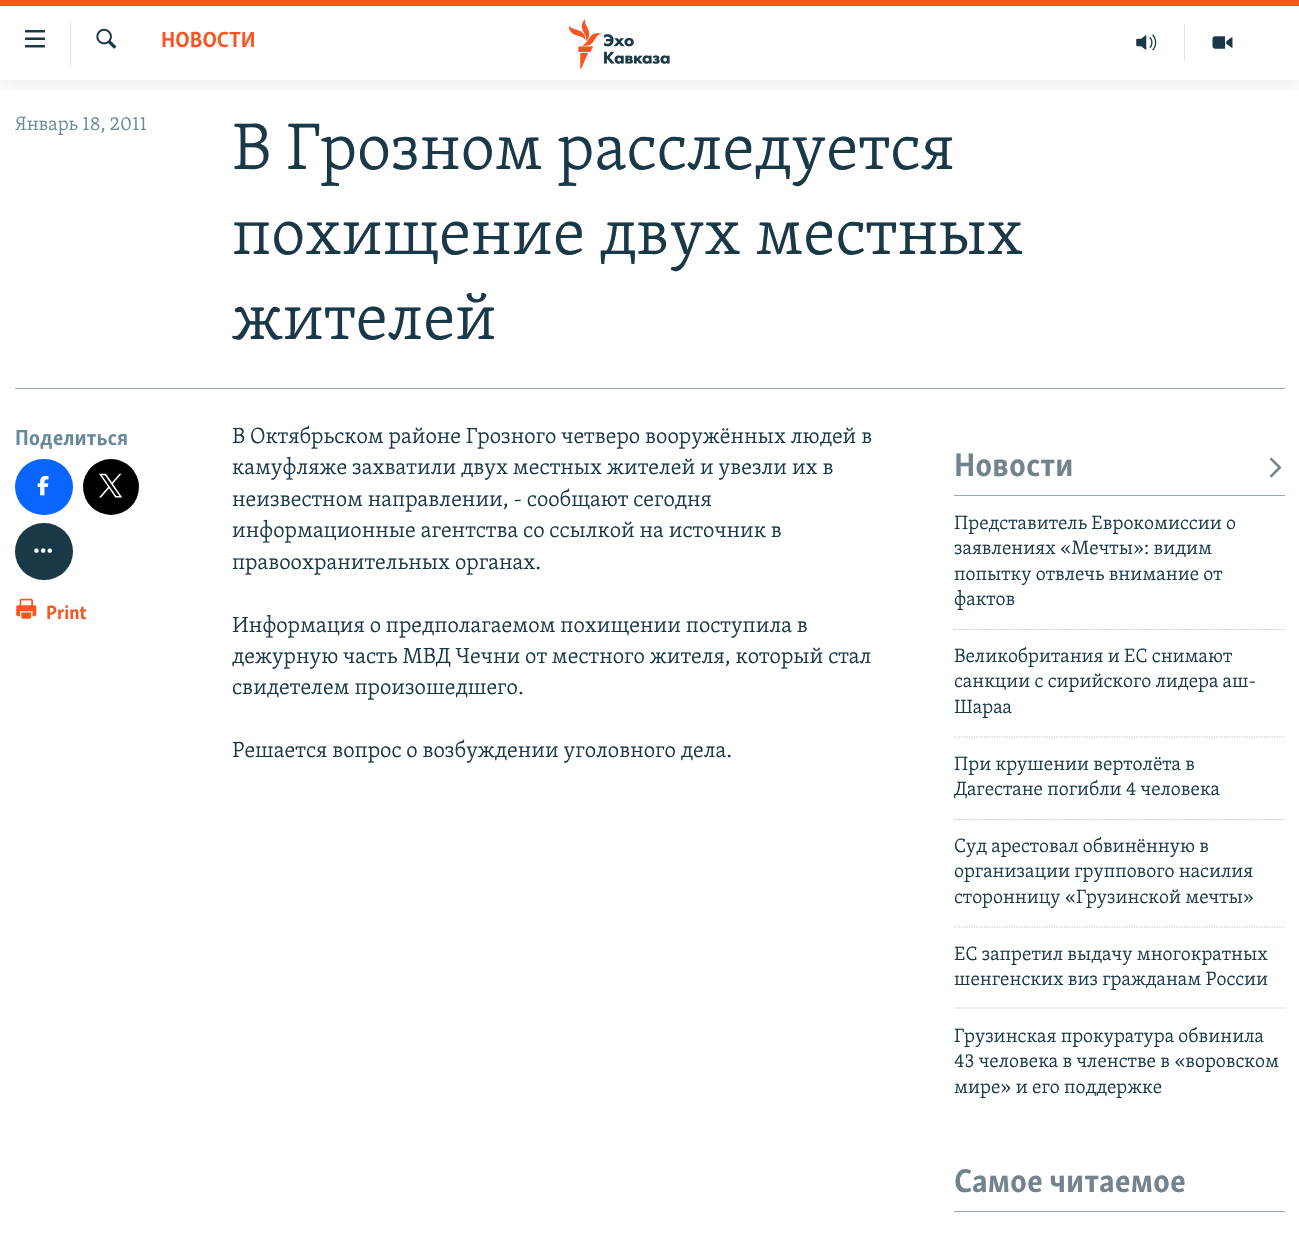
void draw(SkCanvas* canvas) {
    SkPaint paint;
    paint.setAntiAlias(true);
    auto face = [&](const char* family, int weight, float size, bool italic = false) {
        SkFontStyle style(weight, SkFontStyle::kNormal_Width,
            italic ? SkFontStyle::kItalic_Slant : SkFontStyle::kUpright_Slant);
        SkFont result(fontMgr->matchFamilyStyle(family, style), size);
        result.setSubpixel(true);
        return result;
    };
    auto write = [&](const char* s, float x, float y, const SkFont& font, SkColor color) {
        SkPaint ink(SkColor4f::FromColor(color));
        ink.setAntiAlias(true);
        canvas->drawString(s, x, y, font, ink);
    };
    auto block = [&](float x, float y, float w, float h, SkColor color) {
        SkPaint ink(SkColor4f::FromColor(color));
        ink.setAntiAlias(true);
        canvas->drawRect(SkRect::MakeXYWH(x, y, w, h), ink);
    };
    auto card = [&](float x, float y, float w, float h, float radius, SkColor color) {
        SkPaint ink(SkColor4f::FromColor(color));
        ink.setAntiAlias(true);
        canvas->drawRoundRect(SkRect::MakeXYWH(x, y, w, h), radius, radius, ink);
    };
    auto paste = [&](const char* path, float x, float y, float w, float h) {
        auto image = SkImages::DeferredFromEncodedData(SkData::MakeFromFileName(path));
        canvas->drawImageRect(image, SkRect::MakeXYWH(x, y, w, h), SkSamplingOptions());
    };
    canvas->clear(SK_ColorWHITE);
    canvas->save();
    canvas->clipRect(SkRect::MakeXYWH(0, 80, 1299, 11));
    paint.setColor(SkColorSetARGB(26, 0, 0, 0));
    paint.setMaskFilter(SkMaskFilter::MakeBlur(kNormal_SkBlurStyle, 12.5f));
    canvas->drawRect(SkRect::MakeXYWH(0, 0, 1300, 80), paint);
    paint.setMaskFilter(nullptr);
    canvas->restore();
    block(0, 0, 1299, 6, SkColorSetRGB(250, 84, 32));
    paste("pic1.png", 25, 30, 20, 18);
    block(70, 21, 1, 44, SkColorSetRGB(220, 228, 232));
    paste("pic2.png", 96, 28, 21, 21);
    auto kFont1 = face("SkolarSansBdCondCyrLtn", 700, 22.5f);
    write("НОВОСТИ", 161, 47, kFont1, SkColorSetRGB(250, 84, 32));
    paste("pic3.png", 569, 19, 101, 50);
    block(1184, 25, 1, 36, SkColorSetRGB(220, 228, 232));
    paste("pic4.png", 1136, 34, 21, 17);
    paste("pic5.png", 1212, 36, 21, 13);
    auto kFont2 = face("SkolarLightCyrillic", 300, 19.75f);
    write("Январь 18, 2011", 15, 130, kFont2, SkColorSetRGB(103, 138, 155));
    auto kFont3 = face("SkolarLightCyrillic", 300, 67.5f);
    write("В Грозном расследуется", 232, 169, kFont3, SkColorSetRGB(26, 57, 72));
    write("похищение двух местных", 232, 254, kFont3, SkColorSetRGB(26, 57, 72));
    write("жителей", 232, 339, kFont3, SkColorSetRGB(26, 57, 72));
    block(15, 388, 1270, 1, SkColorSetRGB(149, 173, 185));
    write("Поделиться", 15, 445, kFont1, SkColorSetRGB(103, 138, 155));
    card(15, 459, 58, 56, 28, SkColorSetRGB(8, 102, 255));
    paste("pic6.png", 37, 475, 12, 21);
    paint.setColor(SK_ColorBLACK);
    canvas->drawCircle(111, 487, 28, paint);
    paste("pic7.png", 99, 473, 24, 25);
    card(15, 523, 58, 57, 28.5f, SkColorSetRGB(26, 57, 72));
    paste("pic8.png", 34, 548, 18, 5);
    paste("pic9.png", 16, 598, 21, 21);
    auto kFont4 = face("SkolarSansBdCondCyrLtn", 700, 19.75f);
    write("Print", 46, 619, kFont4, SkColorSetRGB(250, 84, 32));
    auto kFont5 = face("SkolarLightCyrillic", 300, 22.5f);
    write("В Октябрьском районе Грозного четверо вооружённых людей в", 232, 443, kFont5, SkColorSetRGB(26, 57, 72));
    write("камуфляже захватили двух местных жителей и увезли их в", 232, 474, kFont5, SkColorSetRGB(26, 57, 72));
    write("неизвестном направлении, - сообщают сегодня", 232, 506, kFont5, SkColorSetRGB(26, 57, 72));
    write("информационные агентства со ссылкой на источник в", 232, 537, kFont5, SkColorSetRGB(26, 57, 72));
    write("правоохранительных органах.", 232, 569, kFont5, SkColorSetRGB(26, 57, 72));
    write("Информация о предполагаемом похищении поступила в", 232, 632, kFont5, SkColorSetRGB(26, 57, 72));
    write("дежурную часть МВД Чечни от местного жителя, который стал", 232, 663, kFont5, SkColorSetRGB(26, 57, 72));
    write("свидетелем произошедшего.", 232, 694, kFont5, SkColorSetRGB(26, 57, 72));
    write("Решается вопрос о возбуждении уголовного дела.", 232, 757, kFont5, SkColorSetRGB(26, 57, 72));
    block(954, 495, 331, 1, SkColorSetRGB(149, 173, 185));
    auto kFont6 = face("SkolarSansBdCondCyrLtn", 700, 33.75f);
    write("Новости", 954, 476, kFont6, SkColorSetRGB(113, 131, 141));
    paint.setColor(SkColorSetRGB(113, 131, 141));
    canvas->drawPath(SkPathBuilder().moveTo(1271.5f, 477.5f).lineTo(1281.5f, 467.5f).lineTo(1271.5f, 457.5f).lineTo(1269.5f, 459).lineTo(1278, 467.5f).lineTo(1269.5f, 476).close().detach(), paint);
    write("Представитель Еврокомиссии о", 954, 529, kFont2, SkColorSetRGB(26, 57, 72));
    write("заявлениях «Мечты»: видим", 954, 554, kFont2, SkColorSetRGB(26, 57, 72));
    write("попытку отвлечь внимание от", 954, 580, kFont2, SkColorSetRGB(26, 57, 72));
    write("фактов", 954, 605, kFont2, SkColorSetRGB(26, 57, 72));
    paint.setStyle(SkPaint::kStroke_Style);
    paint.setStrokeWidth(1.2f);
    paint.setColor(SkColorSetRGB(180, 197, 205));
    paint.setPathEffect(SkDashPathEffect::Make({{1.25f, 1.25f}}, 0));
    canvas->drawPath(SkPathBuilder().moveTo(954, 629.5f).lineTo(1285, 629.5f).detach(), paint);
    paint.setPathEffect(nullptr);
    write("Великобритания и ЕС снимают", 954, 662, kFont2, SkColorSetRGB(26, 57, 72));
    write("санкции с сирийского лидера аш-", 954, 687, kFont2, SkColorSetRGB(26, 57, 72));
    write("Шараа", 954, 713, kFont2, SkColorSetRGB(26, 57, 72));
    paint.setPathEffect(SkDashPathEffect::Make({{1.25f, 1.25f}}, 0));
    canvas->drawPath(SkPathBuilder().moveTo(954, 737).lineTo(1285, 737).detach(), paint);
    paint.setPathEffect(nullptr);
    write("При крушении вертолёта в", 954, 770, kFont2, SkColorSetRGB(26, 57, 72));
    write("Дагестане погибли 4 человека", 954, 795, kFont2, SkColorSetRGB(26, 57, 72));
    paint.setPathEffect(SkDashPathEffect::Make({{1.25f, 1.25f}}, 0));
    canvas->drawPath(SkPathBuilder().moveTo(954, 819.5f).lineTo(1285, 819.5f).detach(), paint);
    paint.setPathEffect(nullptr);
    write("Суд арестовал обвинённую в", 954, 852, kFont2, SkColorSetRGB(26, 57, 72));
    write("организации группового насилия", 954, 877, kFont2, SkColorSetRGB(26, 57, 72));
    write("сторонницу «Грузинской мечты»", 954, 903, kFont2, SkColorSetRGB(26, 57, 72));
    paint.setPathEffect(SkDashPathEffect::Make({{1.25f, 1.25f}}, 0));
    canvas->drawPath(SkPathBuilder().moveTo(954, 927).lineTo(1285, 927).detach(), paint);
    paint.setPathEffect(nullptr);
    write("ЕС запретил выдачу многократных", 954, 960, kFont2, SkColorSetRGB(26, 57, 72));
    write("шенгенских виз гражданам России", 954, 985, kFont2, SkColorSetRGB(26, 57, 72));
    paint.setPathEffect(SkDashPathEffect::Make({{1.25f, 1.25f}}, 0));
    canvas->drawPath(SkPathBuilder().moveTo(954, 1008).lineTo(1285, 1008).detach(), paint);
    paint.setPathEffect(nullptr);
    write("Грузинская прокуратура обвинила", 954, 1042, kFont2, SkColorSetRGB(26, 57, 72));
    write("43 человека в членстве в «воровском", 954, 1067, kFont2, SkColorSetRGB(26, 57, 72));
    write("мире» и его поддержке", 954, 1093, kFont2, SkColorSetRGB(26, 57, 72));
    block(954, 1211, 331, 1, SkColorSetRGB(149, 173, 185));
    write("Самое читаемое", 954, 1192, kFont6, SkColorSetRGB(113, 131, 141));
}
